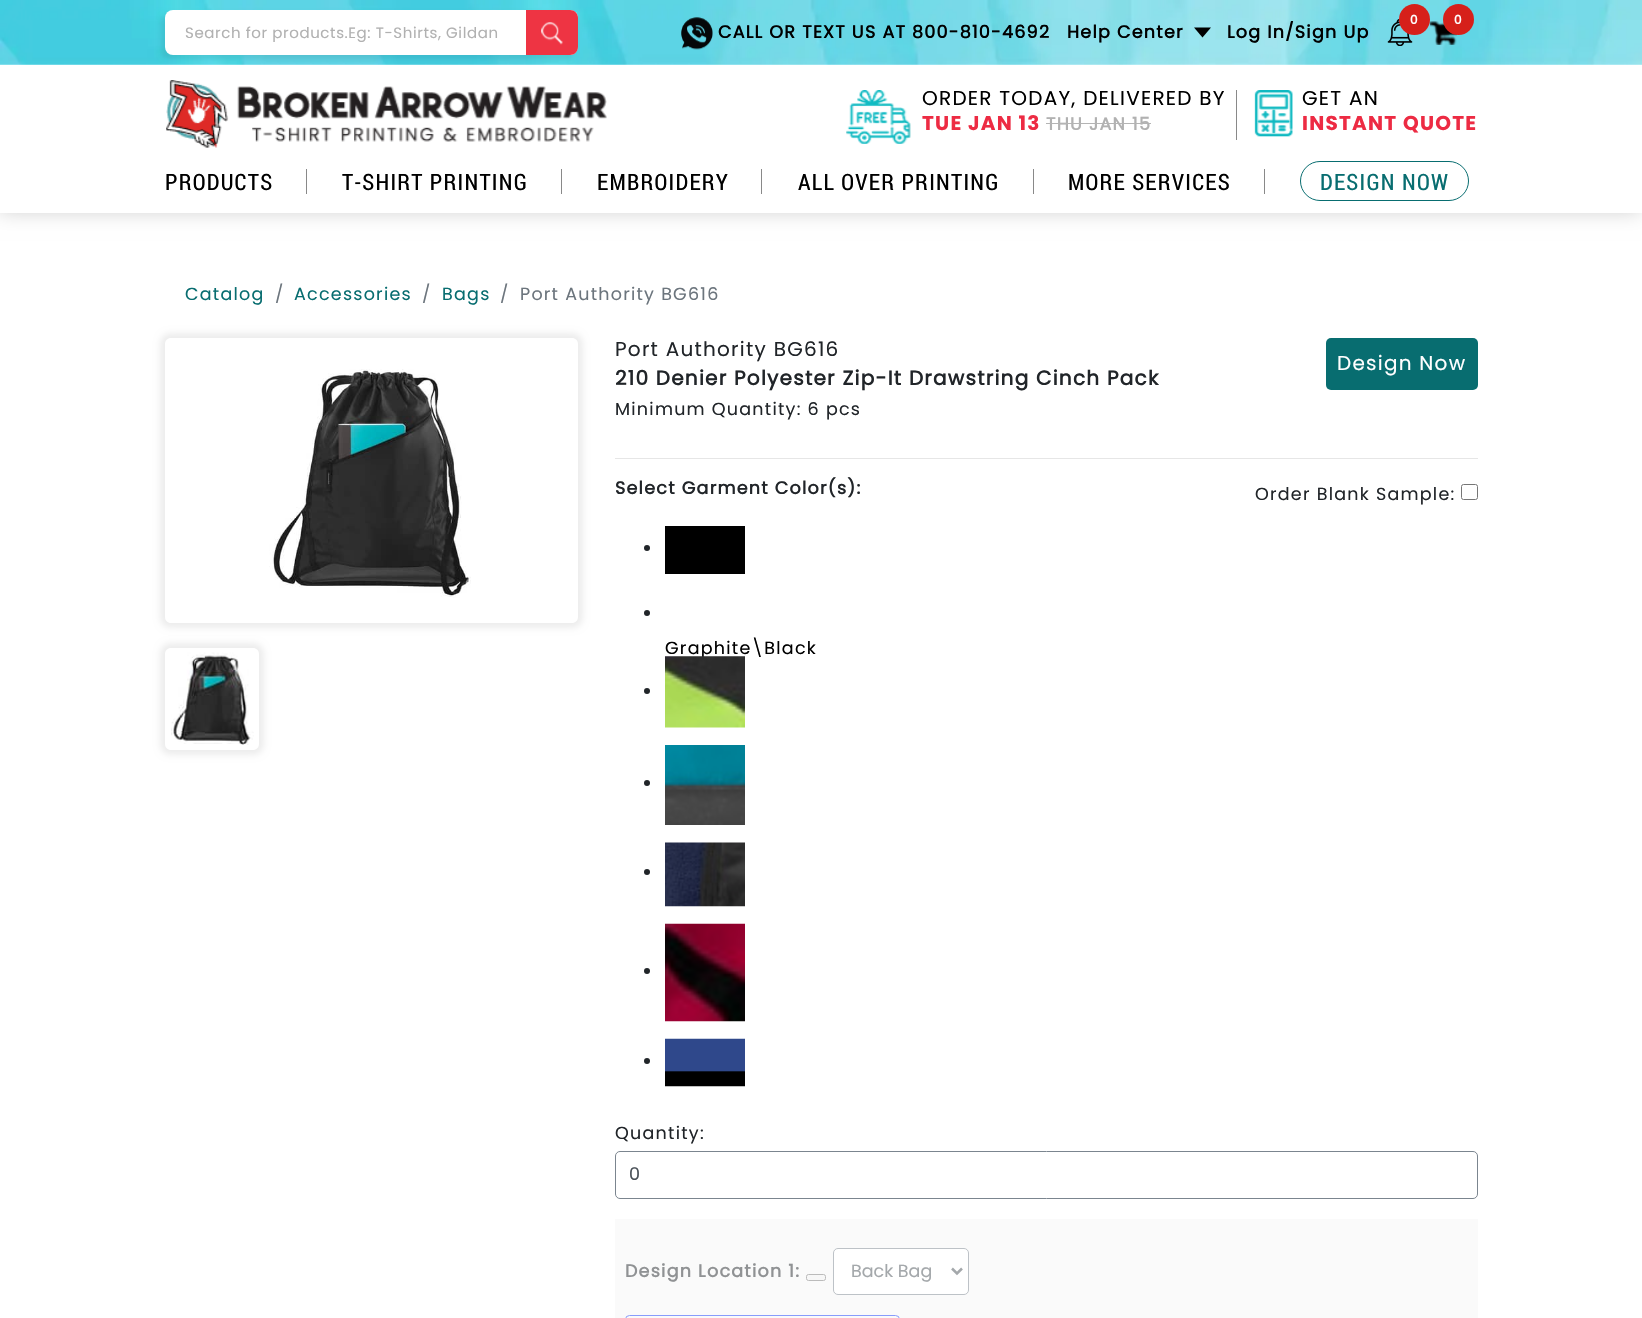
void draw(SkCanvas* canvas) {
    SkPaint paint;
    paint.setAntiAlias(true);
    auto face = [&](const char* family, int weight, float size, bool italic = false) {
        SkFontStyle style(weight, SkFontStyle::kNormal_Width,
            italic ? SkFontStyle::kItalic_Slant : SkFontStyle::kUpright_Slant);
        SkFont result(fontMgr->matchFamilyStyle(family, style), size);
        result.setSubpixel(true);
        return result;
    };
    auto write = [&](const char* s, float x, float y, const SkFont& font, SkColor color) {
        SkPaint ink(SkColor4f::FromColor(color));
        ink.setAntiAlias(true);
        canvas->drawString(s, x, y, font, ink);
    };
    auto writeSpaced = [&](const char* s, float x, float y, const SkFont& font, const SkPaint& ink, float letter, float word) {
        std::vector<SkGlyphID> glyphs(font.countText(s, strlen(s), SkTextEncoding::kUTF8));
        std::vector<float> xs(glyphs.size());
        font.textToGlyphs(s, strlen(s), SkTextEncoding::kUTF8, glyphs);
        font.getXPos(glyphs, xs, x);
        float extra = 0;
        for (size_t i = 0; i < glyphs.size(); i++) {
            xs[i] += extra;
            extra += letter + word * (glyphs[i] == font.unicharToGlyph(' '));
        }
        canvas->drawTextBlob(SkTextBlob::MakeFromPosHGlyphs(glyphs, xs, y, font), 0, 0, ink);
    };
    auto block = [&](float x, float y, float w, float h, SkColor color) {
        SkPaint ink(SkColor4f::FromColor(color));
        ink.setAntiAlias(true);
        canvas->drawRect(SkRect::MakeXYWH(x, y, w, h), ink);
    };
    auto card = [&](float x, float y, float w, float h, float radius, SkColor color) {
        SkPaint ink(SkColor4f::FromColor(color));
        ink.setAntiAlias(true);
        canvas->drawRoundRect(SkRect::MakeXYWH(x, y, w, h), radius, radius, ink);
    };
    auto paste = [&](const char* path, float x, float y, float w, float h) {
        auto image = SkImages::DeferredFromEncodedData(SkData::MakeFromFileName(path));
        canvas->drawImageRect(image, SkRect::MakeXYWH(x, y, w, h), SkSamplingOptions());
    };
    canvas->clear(SK_ColorWHITE);
    paint.setColor(SkColorSetARGB(51, 0, 0, 0));
    paint.setMaskFilter(SkMaskFilter::MakeBlur(kNormal_SkBlurStyle, 10));
    canvas->drawRect(SkRect::MakeXYWH(-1, -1, 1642, 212), paint);
    paint.setMaskFilter(nullptr);
    block(0, 64, 1642, 149, SK_ColorWHITE);
    paste("pic1.png", 0, 0, 1642, 65);
    paint.setColor(SkColorSetARGB(20, 0, 0, 0));
    paint.setMaskFilter(SkMaskFilter::MakeBlur(kNormal_SkBlurStyle, 2.5f));
    canvas->drawRoundRect(SkRect::MakeXYWH(161, 14, 413, 45), 8, 8, paint);
    paint.setMaskFilter(nullptr);
    card(165, 10, 413, 45, 8, SK_ColorWHITE);
    auto kFont1 = face("Poppins", 400, 15);
    paint.setColor(SkColorSetRGB(177, 177, 177));
    writeSpaced("Search for products.Eg: T-Shirts, Gildan", 185, 38, kFont1, paint, 0.6f, 0);
    paint.setColor(SkColorSetRGB(238, 52, 67));
    canvas->drawPath(SkPathBuilder().moveTo(526, 10).lineTo(570, 10).cubicTo(574.5f, 10, 578, 13.5f, 578, 18).lineTo(578, 47).cubicTo(578, 51.5f, 574.5f, 55, 570, 55).lineTo(526, 55).close().detach(), paint);
    paste("pic2.png", 541, 22, 22, 23);
    paste("pic3.png", 1387, 19, 26, 27);
    paint.setColor(SkColorSetRGB(214, 32, 26));
    canvas->drawCircle(1414.5f, 19.5f, 15.5f, paint);
    auto kFont2 = face("Poppins", 700, 12);
    paint.setColor(SK_ColorWHITE);
    writeSpaced("0", 1410, 24, kFont2, paint, 1.25f, 0);
    paste("pic4.png", 1430, 21, 27, 24);
    paint.setColor(SkColorSetRGB(214, 32, 26));
    canvas->drawCircle(1458.5f, 19.5f, 15.5f, paint);
    paint.setColor(SK_ColorWHITE);
    writeSpaced("0", 1454, 24, kFont2, paint, 1.25f, 0);
    paste("pic5.png", 681, 17, 32, 33);
    auto kFont3 = face("Poppins", 700, 17.5f);
    paint.setColor(SK_ColorBLACK);
    writeSpaced("CALL OR TEXT US AT 800-810-4692", 718, 38, kFont3, paint, 1.25f, 0);
    writeSpaced("Help Center", 1067, 38, kFont3, paint, 1.25f, 0);
    canvas->drawPath(SkPathBuilder().moveTo(1194, 27.5f).lineTo(1211, 27.5f).lineTo(1202.5f, 37.5f).close().detach(), paint);
    writeSpaced("Log In/Sign Up", 1227, 38, kFont3, paint, 1.25f, 0);
    paste("pic6.png", 166, 80, 441, 68);
    paste("pic7.png", 846, 90, 65, 54);
    auto kFont4 = face("Poppins", 400, 20);
    writeSpaced("ORDER TODAY, DELIVERED BY", 922, 105, kFont4, paint, 1.25f, 0);
    auto kFont5 = face("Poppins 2", 700, 20);
    paint.setColor(SkColorSetRGB(237, 43, 67));
    writeSpaced("TUE JAN 13", 922, 130, kFont5, paint, 1.25f, 0);
    paint.setColor(SkColorSetRGB(177, 177, 177));
    writeSpaced("THU JAN 15", 1046, 130, kFont3, paint, 1.25f, 0);
    block(1046, 123, 105, 1, SkColorSetRGB(180, 180, 180));
    block(1236, 90, 1, 50, SkColorSetRGB(137, 137, 137));
    paste("pic8.png", 1254, 90, 39, 47);
    paint.setColor(SK_ColorBLACK);
    writeSpaced("GET AN", 1302, 105, kFont4, paint, 1.25f, 0);
    paint.setColor(SkColorSetRGB(237, 43, 67));
    writeSpaced("INSTANT QUOTE", 1302, 130, kFont5, paint, 1.25f, 0);
    auto kFont6 = face("Roboto Condensed", 400, 22.5f);
    paint.setColor(SK_ColorBLACK);
    writeSpaced("PRODUCTS", 165, 190, kFont6, paint, 1.25f, 0);
    block(306, 169, 1, 25, SkColorSetRGB(137, 137, 137));
    writeSpaced("T-SHIRT PRINTING", 342, 190, kFont6, paint, 1.25f, 0);
    block(561, 169, 1, 25, SkColorSetRGB(137, 137, 137));
    writeSpaced("EMBROIDERY", 597, 190, kFont6, paint, 1.25f, 0);
    block(761, 169, 1, 25, SkColorSetRGB(137, 137, 137));
    writeSpaced("ALL OVER PRINTING", 798, 190, kFont6, paint, 1.25f, 0);
    block(1033, 169, 1, 25, SkColorSetRGB(137, 137, 137));
    writeSpaced("MORE SERVICES", 1068, 190, kFont6, paint, 1.25f, 0);
    block(1264, 169, 1, 25, SkColorSetRGB(137, 137, 137));
    paint.setStyle(SkPaint::kStroke_Style);
    paint.setStrokeWidth(1);
    paint.setColor(SkColorSetRGB(8, 109, 112));
    canvas->drawRoundRect(SkRect::MakeXYWH(1300.5f, 161.5f, 168, 39), 19.5f, 19.5f, paint);
    paint.setStyle(SkPaint::kFill_Style);
    writeSpaced("DESIGN NOW", 1320, 190, kFont6, paint, 1.25f, 0);
    auto kFont7 = face("Poppins", 400, 17.5f);
    writeSpaced("Catalog", 185, 300, kFont7, paint, 1.25f, 0);
    paint.setColor(SkColorSetRGB(108, 117, 125));
    writeSpaced("/", 275, 300, kFont7, paint, 1.25f, 0);
    paint.setColor(SkColorSetRGB(8, 109, 112));
    writeSpaced("Accessories", 294, 300, kFont7, paint, 1.25f, 0);
    paint.setColor(SkColorSetRGB(108, 117, 125));
    writeSpaced("/", 422, 300, kFont7, paint, 1.25f, 0);
    paint.setColor(SkColorSetRGB(8, 109, 112));
    writeSpaced("Bags", 442, 300, kFont7, paint, 1.25f, 0);
    paint.setColor(SkColorSetRGB(108, 117, 125));
    writeSpaced("/", 500, 300, kFont7, paint, 1.25f, 0);
    writeSpaced("Port Authority BG616", 520, 300, kFont7, paint, 1.25f, 0);
    canvas->save();
    canvas->clipPath(SkPathBuilder(SkPathFillType::kEvenOdd).moveTo(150, 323).lineTo(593, 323).lineTo(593, 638).lineTo(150, 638).close().moveTo(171, 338).lineTo(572, 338).cubicTo(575.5f, 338, 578, 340.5f, 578, 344).lineTo(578, 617).cubicTo(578, 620.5f, 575.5f, 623, 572, 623).lineTo(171, 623).cubicTo(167.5f, 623, 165, 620.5f, 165, 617).lineTo(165, 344).cubicTo(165, 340.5f, 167.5f, 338, 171, 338).close().detach(), true);
    paint.setColor(SkColorSetARGB(18, 0, 0, 0));
    paint.setMaskFilter(SkMaskFilter::MakeBlur(kNormal_SkBlurStyle, 3));
    canvas->drawRoundRect(SkRect::MakeXYWH(160, 333, 423, 295), 11, 11, paint);
    paint.setMaskFilter(nullptr);
    canvas->restore();
    paste("pic9.png", 269, 369, 202, 229);
    canvas->save();
    canvas->clipPath(SkPathBuilder(SkPathFillType::kEvenOdd).moveTo(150, 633).lineTo(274, 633).lineTo(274, 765).lineTo(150, 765).close().moveTo(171, 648).lineTo(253, 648).cubicTo(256.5f, 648, 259, 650.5f, 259, 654).lineTo(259, 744).cubicTo(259, 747.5f, 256.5f, 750, 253, 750).lineTo(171, 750).cubicTo(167.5f, 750, 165, 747.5f, 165, 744).lineTo(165, 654).cubicTo(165, 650.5f, 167.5f, 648, 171, 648).close().detach(), true);
    paint.setMaskFilter(SkMaskFilter::MakeBlur(kNormal_SkBlurStyle, 3));
    canvas->drawRoundRect(SkRect::MakeXYWH(160, 643, 104, 112), 11, 11, paint);
    paint.setMaskFilter(nullptr);
    canvas->restore();
    paste("pic10.png", 171, 652, 83, 93);
    paint.setColor(SkColorSetRGB(33, 37, 41));
    writeSpaced("Port Authority BG616", 615, 356, kFont4, paint, 1.25f, 0);
    auto kFont8 = face("Poppins", 700, 20);
    writeSpaced("210 Denier Polyester Zip-It Drawstring Cinch Pack", 615, 385, kFont8, paint, 1.25f, 0);
    writeSpaced("Minimum Quantity: 6 pcs", 615, 415, kFont7, paint, 1.25f, 0);
    card(1326, 338, 152, 52, 5, SkColorSetRGB(8, 109, 112));
    paint.setColor(SK_ColorWHITE);
    writeSpaced("Design Now", 1337, 370, kFont4, paint, 1.25f, 0);
    block(615, 458, 863, 1, SkColorSetRGB(230, 230, 230));
    paint.setColor(SkColorSetRGB(33, 37, 41));
    writeSpaced("Select Garment Color(s):", 615, 494, kFont3, paint, 1.25f, 0);
    writeSpaced("Order Blank Sample:", 1255, 500, kFont7, paint, 1.25f, 0);
    paint.setStyle(SkPaint::kStroke_Style);
    paint.setColor(SkColorSetRGB(118, 118, 118));
    canvas->drawRoundRect(SkRect::MakeXYWH(1461.5f, 484.5f, 16, 15), 2, 2, paint);
    paint.setStyle(SkPaint::kFill_Style);
    paint.setColor(SkColorSetRGB(33, 37, 41));
    canvas->drawCircle(647, 548, 3, paint);
    block(665, 526, 80, 48, SK_ColorBLACK);
    canvas->drawCircle(647, 613, 3, paint);
    paint.setColor(SK_ColorBLACK);
    writeSpaced("Graphite\\Black", 665, 654, kFont7, paint, 1.25f, 0);
    paint.setColor(SkColorSetRGB(33, 37, 41));
    canvas->drawCircle(647, 691, 3, paint);
    paste("pic11.png", 665, 656, 80, 72);
    canvas->drawCircle(647, 783, 3, paint);
    paste("pic12.png", 665, 745, 80, 80);
    canvas->drawCircle(647, 872, 3, paint);
    paste("pic13.png", 665, 842, 80, 65);
    canvas->drawCircle(647, 971, 3, paint);
    paste("pic14.png", 665, 923, 80, 99);
    canvas->drawCircle(647, 1061, 3, paint);
    paste("pic15.png", 665, 1038, 80, 49);
    writeSpaced("Quantity:", 615, 1139, kFont7, paint, 1.25f, 0);
    paint.setStyle(SkPaint::kStroke_Style);
    paint.setColor(SkColorSetRGB(123, 133, 143));
    canvas->drawRoundRect(SkRect::MakeXYWH(615.5f, 1151.5f, 862, 47), 4.5f, 4.5f, paint);
    write("0", 629, 1180, kFont7, SkColorSetRGB(73, 80, 87));
    block(615, 1219, 863, 99, SkColorSetRGB(250, 250, 250));
    paint.setStyle(SkPaint::kFill_Style);
    paint.setColor(SkColorSetRGB(144, 146, 148));
    writeSpaced("Design Location 1:", 625, 1277, kFont3, paint, 1.25f, 0);
    paint.setColor(SkColorSetRGB(247, 247, 247));
    canvas->drawRoundRect(SkRect::MakeXYWH(806.5f, 1274.5f, 19, 6), 2, 2, paint);
    paint.setStyle(SkPaint::kStroke_Style);
    paint.setColor(SkColorSetRGB(187, 187, 187));
    canvas->drawRoundRect(SkRect::MakeXYWH(806.5f, 1274.5f, 19, 6), 2, 2, paint);
    paint.setStyle(SkPaint::kFill_Style);
    paint.setColor(SK_ColorWHITE);
    canvas->drawRoundRect(SkRect::MakeXYWH(833.5f, 1248.5f, 135, 46), 4.5f, 4.5f, paint);
    paint.setStyle(SkPaint::kStroke_Style);
    paint.setColor(SkColorSetRGB(189, 194, 199));
    canvas->drawRoundRect(SkRect::MakeXYWH(833.5f, 1248.5f, 135, 46), 4.5f, 4.5f, paint);
    paint.setStrokeWidth(2.5f);
    paint.setColor(SkColorSetRGB(164, 168, 171));
    canvas->drawPath(SkPathBuilder().moveTo(952, 1268.5f).lineTo(957, 1273.5f).lineTo(962, 1268.5f).detach(), paint);
    write("Back Bag", 851, 1277, kFont7, SkColorSetRGB(164, 168, 171));
    paint.setStrokeWidth(1);
    paint.setColor(SkColorSetRGB(136, 156, 251));
    canvas->drawRoundRect(SkRect::MakeXYWH(625.5f, 1315.5f, 274, 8), 4.5f, 4.5f, paint);
}
